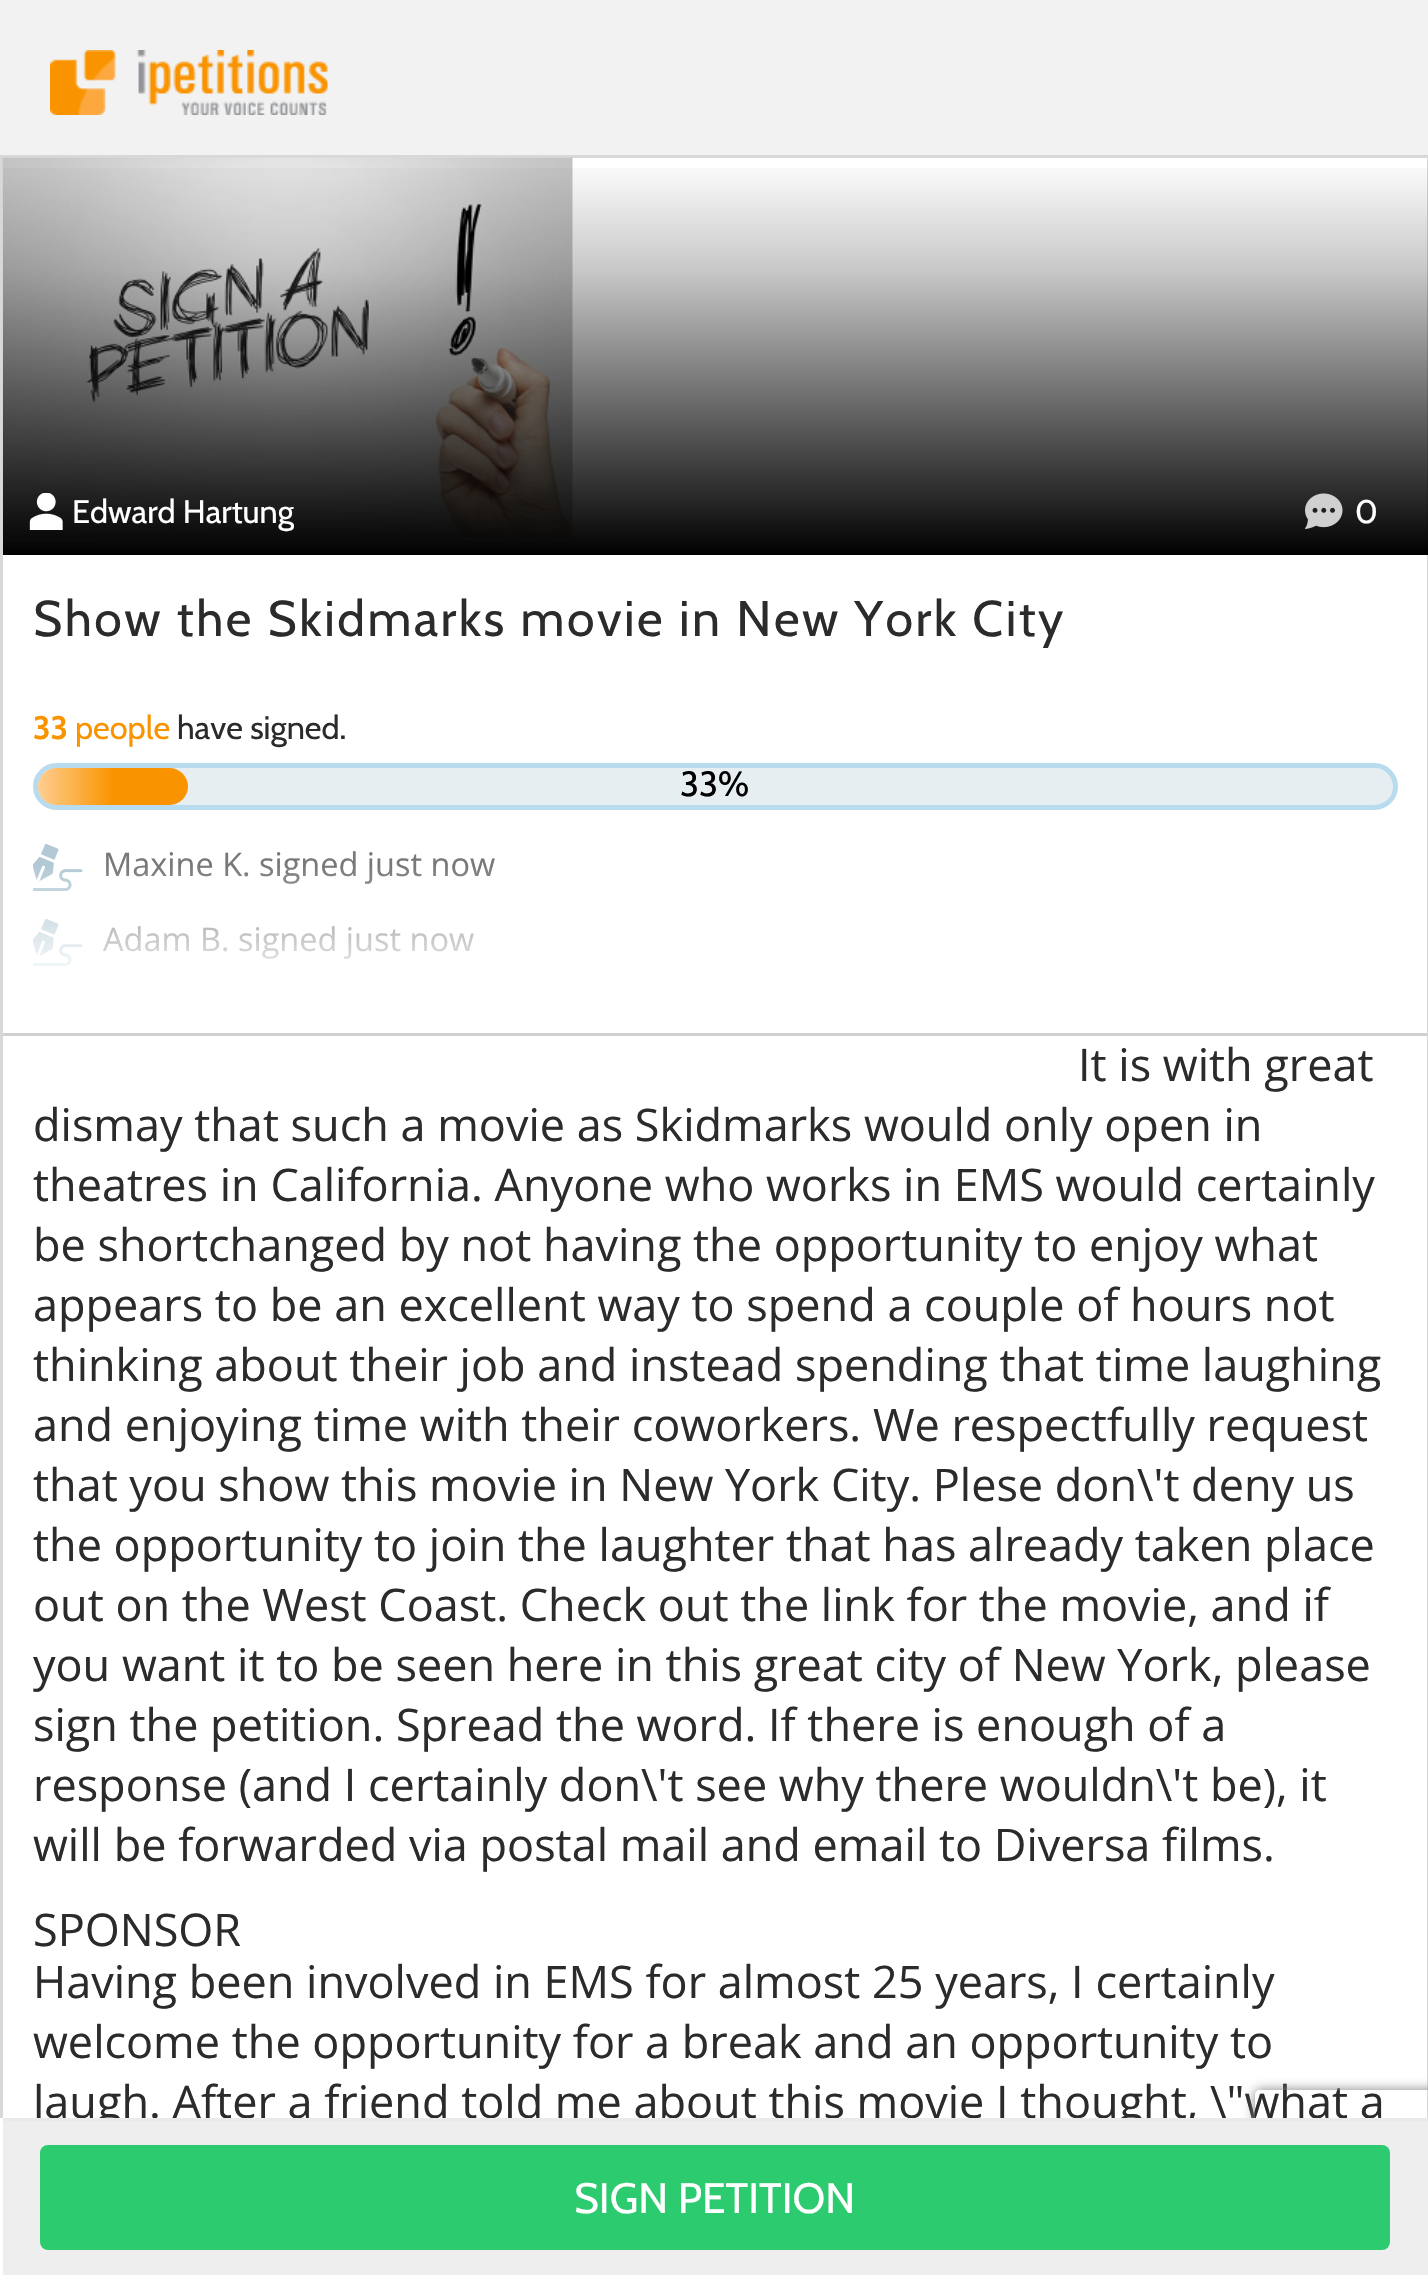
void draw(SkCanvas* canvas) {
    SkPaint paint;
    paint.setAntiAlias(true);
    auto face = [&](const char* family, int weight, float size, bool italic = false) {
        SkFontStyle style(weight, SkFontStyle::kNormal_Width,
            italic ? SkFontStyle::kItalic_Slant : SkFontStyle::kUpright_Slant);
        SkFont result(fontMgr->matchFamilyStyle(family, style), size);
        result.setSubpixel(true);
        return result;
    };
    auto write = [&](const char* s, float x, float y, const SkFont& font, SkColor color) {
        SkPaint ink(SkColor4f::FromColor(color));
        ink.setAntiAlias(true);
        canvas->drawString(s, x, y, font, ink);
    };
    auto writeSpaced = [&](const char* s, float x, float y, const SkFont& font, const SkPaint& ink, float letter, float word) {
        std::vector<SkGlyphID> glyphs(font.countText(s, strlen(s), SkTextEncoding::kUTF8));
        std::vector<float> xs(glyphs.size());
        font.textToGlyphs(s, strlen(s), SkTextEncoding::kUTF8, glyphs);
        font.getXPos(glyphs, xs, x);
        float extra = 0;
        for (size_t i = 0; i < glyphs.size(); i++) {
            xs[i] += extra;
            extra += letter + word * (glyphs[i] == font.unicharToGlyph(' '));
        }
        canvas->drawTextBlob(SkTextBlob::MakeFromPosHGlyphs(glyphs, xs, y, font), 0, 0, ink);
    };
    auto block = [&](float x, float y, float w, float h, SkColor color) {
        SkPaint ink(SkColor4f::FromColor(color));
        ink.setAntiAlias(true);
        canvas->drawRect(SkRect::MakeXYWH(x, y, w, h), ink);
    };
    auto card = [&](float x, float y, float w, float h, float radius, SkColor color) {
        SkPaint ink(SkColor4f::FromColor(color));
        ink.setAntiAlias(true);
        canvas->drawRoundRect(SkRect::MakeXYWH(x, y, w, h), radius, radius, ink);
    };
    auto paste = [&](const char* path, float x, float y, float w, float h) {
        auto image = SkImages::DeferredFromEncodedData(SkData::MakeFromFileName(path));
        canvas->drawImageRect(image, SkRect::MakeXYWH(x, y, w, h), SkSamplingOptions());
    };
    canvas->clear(SkColorSetRGB(242, 242, 242));
    paste("pic1.png", 50, 50, 278, 65);
    block(3, 158, 1424, 1960, SK_ColorWHITE);
    paint.setStyle(SkPaint::kStroke_Style);
    paint.setStrokeWidth(3);
    paint.setColor(SkColorSetRGB(216, 216, 216));
    canvas->drawRect(SkRect::MakeXYWH(1.5f, 156.5f, 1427, 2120), paint);
    paste("pic2.png", 2, 157, 571, 381);
    paint.setStyle(SkPaint::kFill_Style);
    {
        const SkColor colors[] = {SkColorSetARGB(0, 0, 0, 0), SkColorSetARGB(54, 0, 0, 0), SK_ColorBLACK};
        const float stops[] = {0, 0.28f, 1};
        const SkPoint ends[] = {{715, 157}, {715, 555}};
        paint.setShader(SkGradientShader::MakeLinear(ends, colors, stops, 3, SkTileMode::kClamp));
        paint.setAlpha(255);
    }
    canvas->drawRect(SkRect::MakeXYWH(3, 168, 1425, 387), paint);
    paste("pic3.png", 29, 493, 34, 37);
    auto kFont1 = face("Cabin", 400, 32.5f);
    write("Edward Hartung", 72, 523, kFont1, SK_ColorWHITE);
    paste("pic4.png", 1305, 493, 38, 36);
    write("0", 1355, 523, kFont1, SK_ColorWHITE);
    auto kFont2 = face("Cabin", 400, 50);
    paint.setShader(nullptr);
    paint.setColor(SkColorSetRGB(43, 43, 43));
    writeSpaced("Show the Skidmarks movie in New York City", 33, 636, kFont2, paint, 2.5f, 0);
    block(3, 1033, 1425, 3, SkColorSetRGB(208, 208, 208));
    auto kFont3 = face("Cabin", 700, 32.5f);
    write("33", 33, 739, kFont3, SkColorSetRGB(249, 148, 0));
    write("people", 75, 739, kFont1, SkColorSetRGB(249, 148, 0));
    write("have signed.", 177, 739, kFont1, SkColorSetRGB(43, 43, 43));
    paint.setColor(SkColorSetRGB(230, 238, 242));
    canvas->drawRoundRect(SkRect::MakeXYWH(35.5f, 765.5f, 1360, 42), 21, 21, paint);
    paint.setStyle(SkPaint::kStroke_Style);
    paint.setStrokeWidth(5);
    paint.setColor(SkColorSetRGB(184, 220, 238));
    canvas->drawRoundRect(SkRect::MakeXYWH(35.5f, 765.5f, 1360, 42), 21, 21, paint);
    paint.setStyle(SkPaint::kFill_Style);
    {
        const SkColor colors[] = {SkColorSetRGB(255, 206, 144), SkColorSetRGB(249, 148, 0)};
        const float stops[] = {0, 0.5f};
        const SkPoint ends[] = {{38, 786}, {188, 786}};
        paint.setShader(SkGradientShader::MakeLinear(ends, colors, stops, 2, SkTileMode::kClamp));
        paint.setAlpha(255);
    }
    canvas->drawRoundRect(SkRect::MakeXYWH(38, 768, 150, 37), 18.5f, 18.5f, paint);
    auto kFont4 = face("Cabin", 400, 35);
    write("33%", 680, 796, kFont4, SK_ColorBLACK);
    paste("pic5.png", 33, 844, 50, 47);
    auto kFont5 = face("Open Sans", 400, 32.5f);
    write("Maxine K. signed just now", 103, 876, kFont5, SkColorSetRGB(120, 120, 120));
    paste("pic5.png", 33, 919, 50, 47);
    write("Adam B. signed just now", 103, 951, kFont5, SkColorSetRGB(120, 120, 120));
    {
        const SkColor colors[] = {SkColorSetARGB(0, 255, 255, 255), SK_ColorWHITE};
        const float stops[] = {0, 1};
        const SkPoint ends[] = {{715, 865}, {715, 990}};
        paint.setShader(SkGradientShader::MakeLinear(ends, colors, stops, 2, SkTileMode::kClamp));
        paint.setAlpha(255);
    }
    canvas->drawRect(SkRect::MakeXYWH(33, 868, 459, 98), paint);
    auto kFont6 = face("Open Sans", 400, 45);
    write("laugh. After a friend told me about this movie I thought, \\\"what a", 33, 2118, kFont6, SkColorSetRGB(43, 43, 43));
    canvas->save();
    canvas->clipPath(SkPathBuilder(SkPathFillType::kEvenOdd).moveTo(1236, 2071).lineTo(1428, 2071).lineTo(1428, 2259).lineTo(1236, 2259).close().moveTo(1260, 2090).lineTo(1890, 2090).cubicTo(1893, 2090, 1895, 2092, 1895, 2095).lineTo(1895, 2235).cubicTo(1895, 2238, 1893, 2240, 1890, 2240).lineTo(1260, 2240).cubicTo(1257, 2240, 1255, 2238, 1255, 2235).lineTo(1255, 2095).cubicTo(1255, 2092, 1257, 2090, 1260, 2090).close().detach(), true);
    paint.setShader(nullptr);
    paint.setColor(SkColorSetRGB(128, 128, 128));
    paint.setMaskFilter(SkMaskFilter::MakeBlur(kNormal_SkBlurStyle, 6));
    canvas->drawRoundRect(SkRect::MakeXYWH(1255, 2090, 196, 150), 5, 5, paint);
    paint.setMaskFilter(nullptr);
    canvas->restore();
    block(3, 2121, 1425, 154, SkColorSetRGB(238, 238, 238));
    block(0, 2118, 1428, 3, SkColorSetRGB(234, 234, 234));
    block(0, 2118, 3, 157, SK_ColorWHITE);
    card(40, 2145, 1350, 105, 8, SkColorSetRGB(44, 203, 111));
    auto kFont7 = face("Cabin", 400, 42.5f);
    write("SIGN PETITION", 574, 2213, kFont7, SK_ColorWHITE);
    write("It is with great", 1078, 1081, kFont6, SkColorSetRGB(43, 43, 43));
    write("dismay that such a movie as Skidmarks would only open in", 33, 1141, kFont6, SkColorSetRGB(43, 43, 43));
    write("theatres in California. Anyone who works in EMS would certainly", 33, 1201, kFont6, SkColorSetRGB(43, 43, 43));
    write("be shortchanged by not having the opportunity to enjoy what", 33, 1261, kFont6, SkColorSetRGB(43, 43, 43));
    write("appears to be an excellent way to spend a couple of hours not", 33, 1321, kFont6, SkColorSetRGB(43, 43, 43));
    write("thinking about their job and instead spending that time laughing", 33, 1381, kFont6, SkColorSetRGB(43, 43, 43));
    write("and enjoying time with their coworkers. We respectfully request", 33, 1441, kFont6, SkColorSetRGB(43, 43, 43));
    write("that you show this movie in New York City. Plese don\\'t deny us", 33, 1501, kFont6, SkColorSetRGB(43, 43, 43));
    write("the opportunity to join the laughter that has already taken place", 33, 1561, kFont6, SkColorSetRGB(43, 43, 43));
    write("out on the West Coast. Check out the link for the movie, and if", 33, 1621, kFont6, SkColorSetRGB(43, 43, 43));
    write("you want it to be seen here in this great city of New York, please", 33, 1681, kFont6, SkColorSetRGB(43, 43, 43));
    write("sign the petition. Spread the word. If there is enough of a", 33, 1741, kFont6, SkColorSetRGB(43, 43, 43));
    write("response (and I certainly don\\'t see why there wouldn\\'t be), it", 33, 1801, kFont6, SkColorSetRGB(43, 43, 43));
    write("will be forwarded via postal mail and email to Diversa films.", 33, 1861, kFont6, SkColorSetRGB(43, 43, 43));
    write("SPONSOR", 33, 1946, kFont6, SkColorSetRGB(43, 43, 43));
    write("Having been involved in EMS for almost 25 years, I certainly", 33, 1998, kFont6, SkColorSetRGB(43, 43, 43));
    write("welcome the opportunity for a break and an opportunity to", 33, 2058, kFont6, SkColorSetRGB(43, 43, 43));
}
